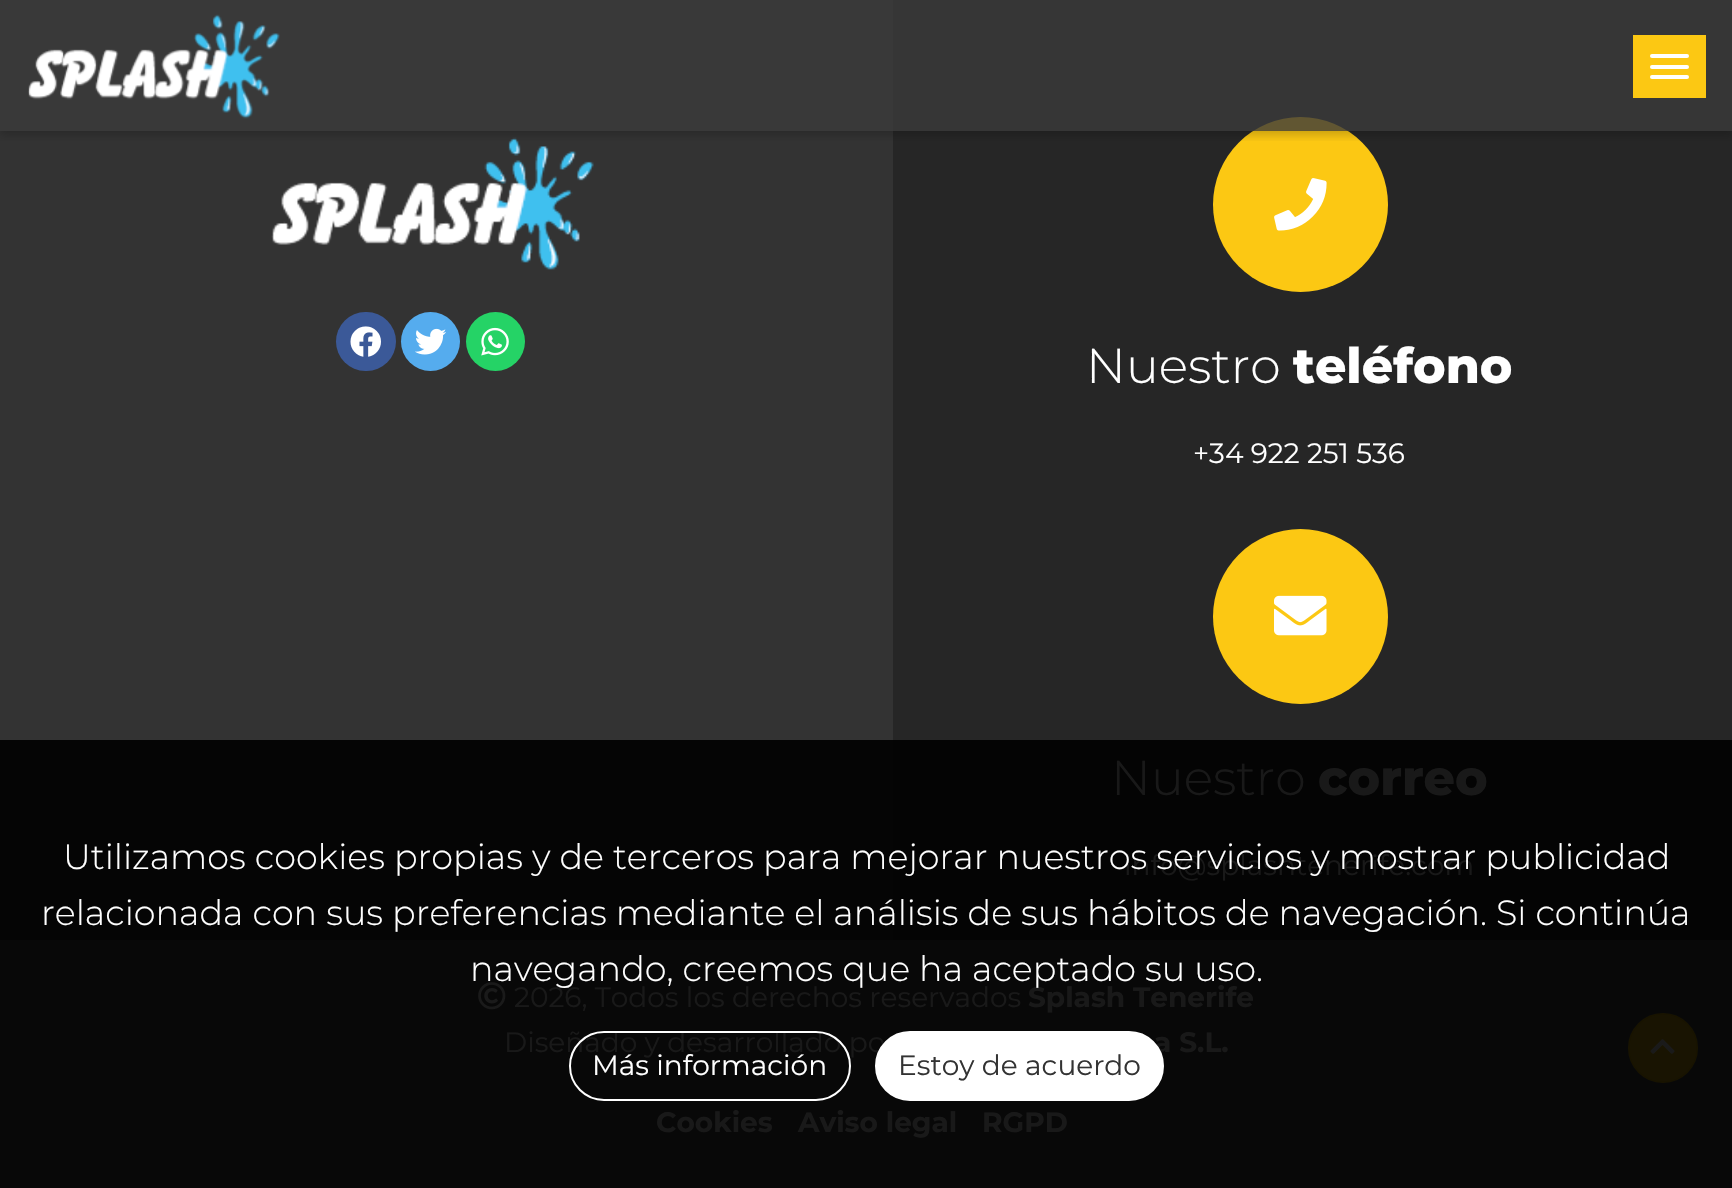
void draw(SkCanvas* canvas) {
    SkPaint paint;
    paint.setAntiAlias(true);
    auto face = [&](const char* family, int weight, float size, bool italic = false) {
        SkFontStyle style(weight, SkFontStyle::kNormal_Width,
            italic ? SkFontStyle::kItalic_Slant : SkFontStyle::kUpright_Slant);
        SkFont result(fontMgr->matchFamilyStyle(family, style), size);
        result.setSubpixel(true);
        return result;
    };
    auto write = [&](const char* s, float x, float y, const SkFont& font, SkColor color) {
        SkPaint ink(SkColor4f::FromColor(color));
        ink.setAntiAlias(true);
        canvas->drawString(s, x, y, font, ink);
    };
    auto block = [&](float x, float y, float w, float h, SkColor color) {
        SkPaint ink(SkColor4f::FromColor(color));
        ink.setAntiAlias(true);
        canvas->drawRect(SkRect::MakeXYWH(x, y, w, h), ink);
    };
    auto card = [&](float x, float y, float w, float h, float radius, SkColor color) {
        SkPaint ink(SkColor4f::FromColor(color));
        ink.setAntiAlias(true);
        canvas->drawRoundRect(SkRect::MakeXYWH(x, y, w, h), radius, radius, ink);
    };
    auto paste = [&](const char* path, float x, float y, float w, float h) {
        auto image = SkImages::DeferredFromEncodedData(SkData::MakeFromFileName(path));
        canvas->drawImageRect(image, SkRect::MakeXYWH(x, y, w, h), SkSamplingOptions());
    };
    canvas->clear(SkColorSetRGB(51, 51, 51));
    block(1706, 0, 26, 740, SkColorSetRGB(38, 38, 38));
    paste("pic2.png", 271, 137, 323, 133);
    block(893, 0, 813, 740, SkColorSetRGB(38, 38, 38));
    paint.setColor(SkColorSetRGB(252, 200, 19));
    canvas->drawCircle(1300.5f, 204.5f, 87.5f, paint);
    canvas->save();
    canvas->clipRect(SkRect::MakeXYWH(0, 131, 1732, 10));
    paint.setColor(SkColorSetARGB(51, 0, 0, 0));
    paint.setMaskFilter(SkMaskFilter::MakeBlur(kNormal_SkBlurStyle, 4.5f));
    canvas->drawRect(SkRect::MakeXYWH(0, 4, 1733, 131), paint);
    paint.setMaskFilter(nullptr);
    canvas->restore();
    block(0, 0, 1732, 131, SkColorSetARGB(204, 58, 58, 58));
    paste("pic1.png", 28, 14, 252, 105);
    block(1633, 35, 73, 63, SkColorSetRGB(252, 200, 19));
    card(1650, 54, 39, 4, 2, SK_ColorWHITE);
    card(1650, 65, 39, 4, 2, SK_ColorWHITE);
    card(1650, 75, 39, 4, 2, SK_ColorWHITE);
    block(0, 740, 893, 200, SkColorSetRGB(5, 5, 5));
    block(893, 740, 839, 200, SkColorSetRGB(4, 4, 4));
    card(336, 312, 60, 59, 29.5f, SkColorSetRGB(59, 89, 152));
    paste("pic3.png", 350, 326, 31, 31);
    paint.setColor(SkColorSetRGB(85, 172, 238));
    canvas->drawCircle(430.5f, 341.5f, 29.5f, paint);
    paste("pic4.png", 415, 328, 31, 27);
    paint.setColor(SkColorSetRGB(37, 211, 102));
    canvas->drawCircle(495.5f, 341.5f, 29.5f, paint);
    paste("pic5.png", 481, 327, 28, 29);
    paste("pic6.png", 1274, 178, 53, 53);
    auto kFont1 = face("Montserrat", 300, 49);
    write("Nuestro", 1086, 383, kFont1, SK_ColorWHITE);
    auto kFont2 = face("Montserrat", 800, 49);
    write("teléfono", 1293, 383, kFont2, SK_ColorWHITE);
    auto kFont3 = face("Montserrat", 400, 28);
    write("+34 922 251 536", 1193, 463, kFont3, SK_ColorWHITE);
    paint.setColor(SkColorSetRGB(252, 200, 19));
    canvas->drawCircle(1300.5f, 616.5f, 87.5f, paint);
    paste("pic7.png", 1274, 595, 53, 41);
    write("Nuestro", 1111, 795, kFont1, SkColorSetRGB(25, 25, 25));
    write("correo", 1318, 795, kFont2, SkColorSetRGB(25, 25, 25));
    write("info@splashtenerife.com", 1124, 875, kFont3, SkColorSetRGB(25, 25, 25));
    block(0, 940, 1732, 248, SkColorSetRGB(8, 8, 8));
    paste("pic8.png", 478, 982, 28, 28);
    write("2026, Todos los derechos reservados", 514, 1007, kFont3, SkColorSetRGB(25, 25, 25));
    auto kFont4 = face("Montserrat", 700, 28);
    write("Splash Tenerife", 1028, 1007, kFont4, SkColorSetRGB(25, 25, 25));
    write("Diseñado y desarrollado po", 504, 1052, kFont3, SkColorSetRGB(25, 25, 25));
    write("a S.L.", 1154, 1052, kFont4, SkColorSetRGB(25, 25, 25));
    write("Cookies", 656, 1132, kFont4, SkColorSetRGB(25, 25, 25));
    write("Aviso legal", 798, 1132, kFont4, SkColorSetRGB(25, 25, 25));
    write("RGPD", 982, 1132, kFont4, SkColorSetRGB(25, 25, 25));
    auto kFont5 = face("Montserrat", 300, 35);
    write("Utilizamos cookies propias y de terceros para mejorar nuestros servicios y mostrar publicidad", 63, 869, kFont5, SK_ColorWHITE);
    write("relacionada con sus preferencias mediante el análisis de sus hábitos de navegación. Si continúa", 41, 925, kFont5, SK_ColorWHITE);
    write("navegando, creemos que ha aceptado su uso.", 470, 981, kFont5, SK_ColorWHITE);
    paint.setStyle(SkPaint::kStroke_Style);
    paint.setStrokeWidth(2);
    paint.setColor(SK_ColorWHITE);
    canvas->drawRoundRect(SkRect::MakeXYWH(570, 1032, 280, 68), 34, 34, paint);
    write("Más información", 592, 1075, kFont3, SK_ColorWHITE);
    paint.setStyle(SkPaint::kFill_Style);
    canvas->drawRoundRect(SkRect::MakeXYWH(876, 1032, 287, 68), 34, 34, paint);
    paint.setStyle(SkPaint::kStroke_Style);
    canvas->drawRoundRect(SkRect::MakeXYWH(876, 1032, 287, 68), 34, 34, paint);
    write("Estoy de acuerdo", 898, 1075, kFont3, SkColorSetRGB(51, 51, 51));
    paint.setStyle(SkPaint::kFill_Style);
    paint.setColor(SkColorSetRGB(25, 20, 2));
    canvas->drawCircle(1663, 1048, 34, paint);
    paint.setStyle(SkPaint::kStroke_Style);
    paint.setColor(SkColorSetRGB(24, 19, 0));
    canvas->drawCircle(1663, 1048, 34, paint);
    paste("pic9.png", 1650, 1039, 25, 15);
}
